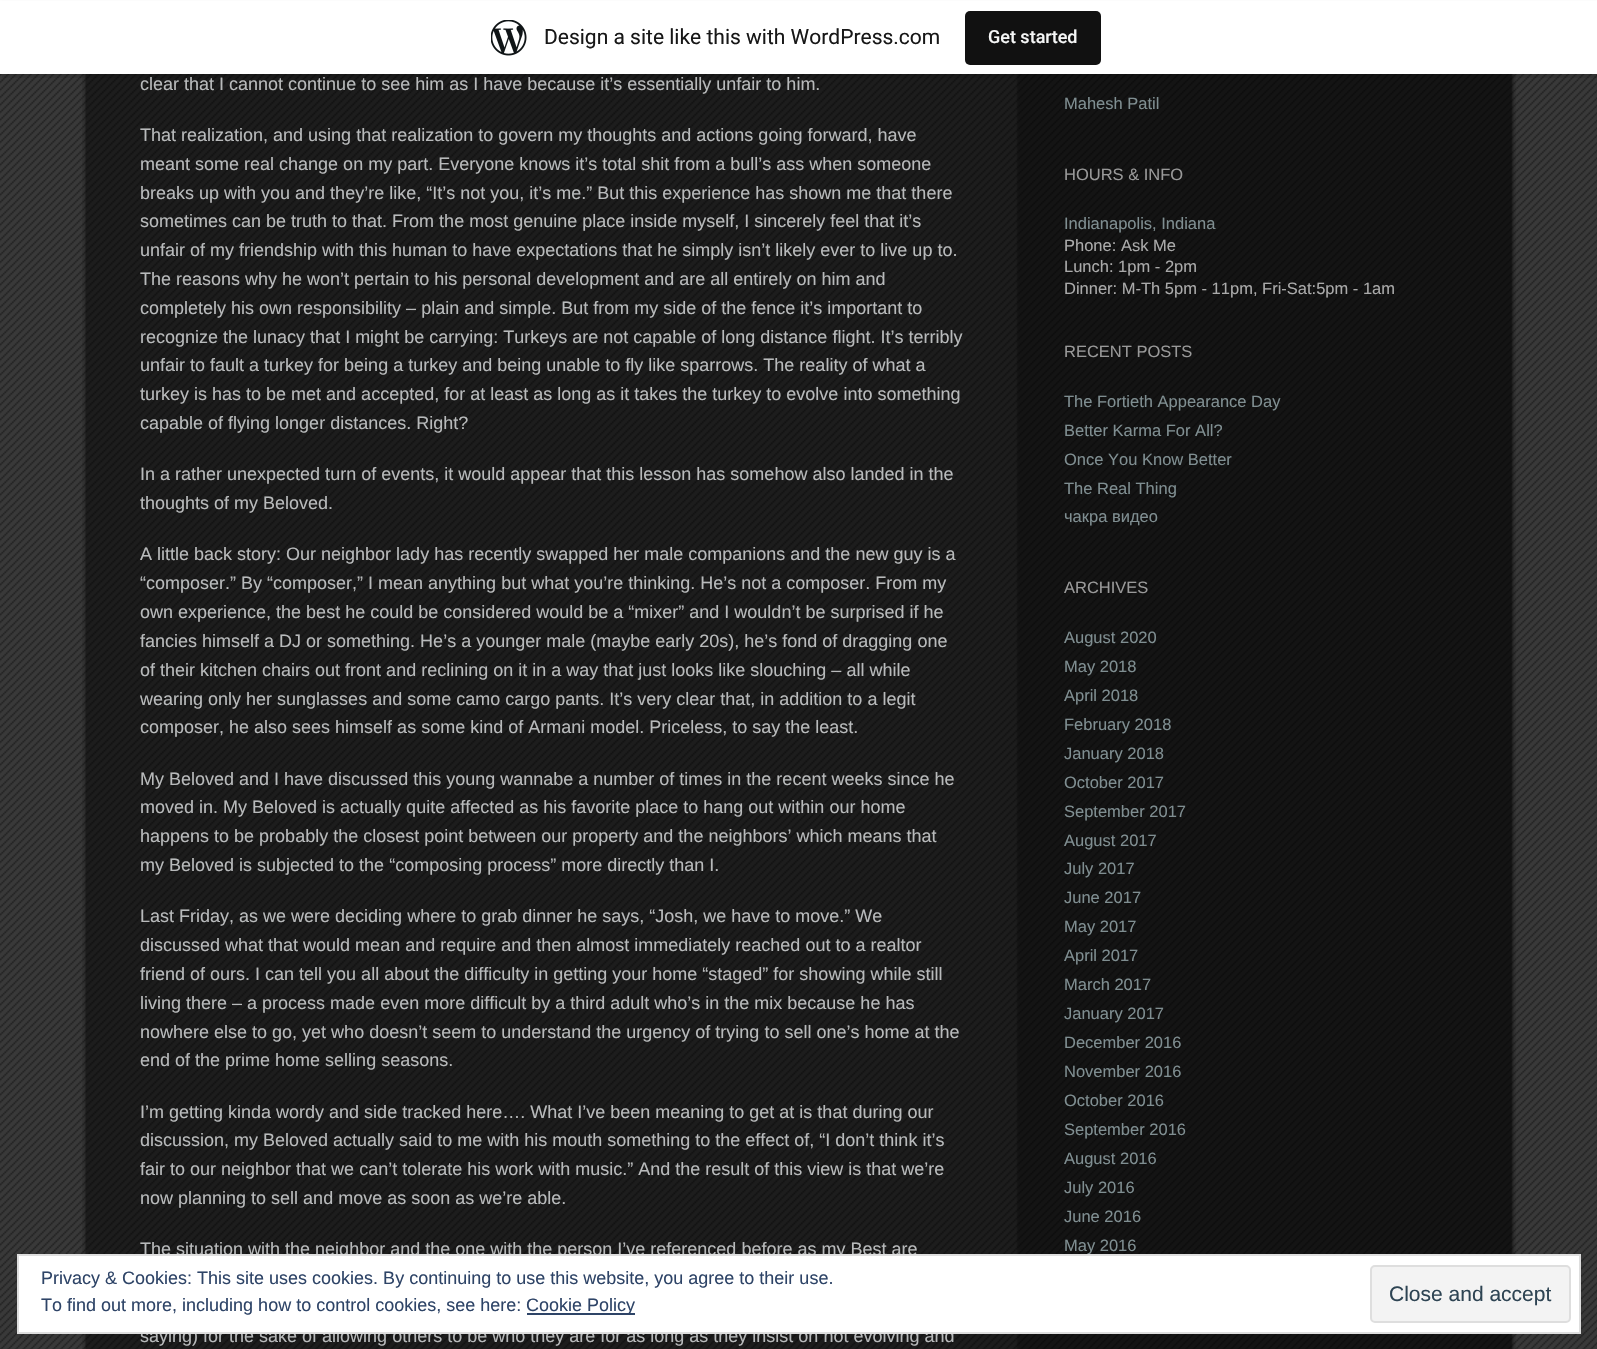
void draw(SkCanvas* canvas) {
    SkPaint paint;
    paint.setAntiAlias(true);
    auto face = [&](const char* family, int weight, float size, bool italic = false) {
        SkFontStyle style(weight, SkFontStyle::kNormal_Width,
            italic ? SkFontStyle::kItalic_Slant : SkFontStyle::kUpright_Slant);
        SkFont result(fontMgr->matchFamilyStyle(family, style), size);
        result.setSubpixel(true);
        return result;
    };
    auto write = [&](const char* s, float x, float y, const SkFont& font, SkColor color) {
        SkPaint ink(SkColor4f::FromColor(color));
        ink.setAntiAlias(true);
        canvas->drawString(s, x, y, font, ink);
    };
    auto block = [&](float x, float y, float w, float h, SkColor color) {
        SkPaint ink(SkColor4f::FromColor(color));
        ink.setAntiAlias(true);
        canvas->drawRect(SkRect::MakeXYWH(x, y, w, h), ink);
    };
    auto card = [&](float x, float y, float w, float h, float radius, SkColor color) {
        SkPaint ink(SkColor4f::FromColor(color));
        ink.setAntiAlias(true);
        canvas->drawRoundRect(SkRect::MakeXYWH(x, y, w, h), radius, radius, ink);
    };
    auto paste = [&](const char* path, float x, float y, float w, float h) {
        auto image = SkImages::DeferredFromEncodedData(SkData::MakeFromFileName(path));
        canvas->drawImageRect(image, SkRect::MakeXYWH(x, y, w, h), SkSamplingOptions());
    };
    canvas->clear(SK_ColorWHITE);
    paste("pic1.png", 0, 74, 1597, 1275);
    paste("pic3.png", 82, 74, 1434, 1275);
    paint.setColor(SkColorSetARGB(13, 0, 0, 0));
    paint.setMaskFilter(SkMaskFilter::MakeBlur(kNormal_SkBlurStyle, 1.5f));
    canvas->drawRect(SkRect::MakeXYWH(0, 2, 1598, 73), paint);
    paint.setMaskFilter(nullptr);
    paint.setColor(SkColorSetARGB(20, 0, 0, 0));
    canvas->drawPath(SkPathBuilder().moveTo(2, 74).lineTo(2, 78).lineTo(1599, 78).lineTo(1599, 5).lineTo(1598, 5).lineTo(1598, 74).close().detach(), paint);
    block(0, 1, 1597, 73, SK_ColorWHITE);
    paste("pic2.png", 491, 20, 36, 36);
    auto kFont1 = face("Roboto", 400, 21);
    write("Design a site like this with WordPress.com", 544, 44, kFont1, SkColorSetRGB(23, 23, 23));
    card(965, 11, 136, 54, 5, SkColorSetRGB(17, 17, 17));
    auto kFont2 = face("Roboto", 500, 18);
    write("Get started", 988, 43, kFont2, SkColorSetRGB(246, 247, 247));
    auto kFont3 = face("Liberation Sans", 400, 18);
    write("clear that I cannot continue to see him as I have because it’s essentially unfair to him.", 140, 90, kFont3, SkColorSetRGB(184, 186, 187));
    write("That realization, and using that realization to govern my thoughts and actions going forward, have", 140, 141, kFont3, SkColorSetRGB(184, 186, 187));
    write("meant some real change on my part. Everyone knows it’s total shit from a bull’s ass when someone", 140, 170, kFont3, SkColorSetRGB(184, 186, 187));
    write("breaks up with you and they’re like, “It’s not you, it’s me.” But this experience has shown me that there", 140, 199, kFont3, SkColorSetRGB(184, 186, 187));
    write("sometimes can be truth to that. From the most genuine place inside myself, I sincerely feel that it’s", 140, 227, kFont3, SkColorSetRGB(184, 186, 187));
    write("unfair of my friendship with this human to have expectations that he simply isn’t likely ever to live up to.", 140, 256, kFont3, SkColorSetRGB(184, 186, 187));
    write("The reasons why he won’t pertain to his personal development and are all entirely on him and", 140, 285, kFont3, SkColorSetRGB(184, 186, 187));
    write("completely his own responsibility – plain and simple. But from my side of the fence it’s important to", 140, 314, kFont3, SkColorSetRGB(184, 186, 187));
    write("recognize the lunacy that I might be carrying: Turkeys are not capable of long distance flight. It’s terribly", 140, 343, kFont3, SkColorSetRGB(184, 186, 187));
    write("unfair to fault a turkey for being a turkey and being unable to fly like sparrows. The reality of what a", 140, 371, kFont3, SkColorSetRGB(184, 186, 187));
    write("turkey is has to be met and accepted, for at least as long as it takes the turkey to evolve into something", 140, 400, kFont3, SkColorSetRGB(184, 186, 187));
    write("capable of flying longer distances. Right?", 140, 429, kFont3, SkColorSetRGB(184, 186, 187));
    write("In a rather unexpected turn of events, it would appear that this lesson has somehow also landed in the", 140, 480, kFont3, SkColorSetRGB(184, 186, 187));
    write("thoughts of my Beloved.", 140, 509, kFont3, SkColorSetRGB(184, 186, 187));
    write("A little back story: Our neighbor lady has recently swapped her male companions and the new guy is a", 140, 560, kFont3, SkColorSetRGB(184, 186, 187));
    write("“composer.” By “composer,” I mean anything but what you’re thinking. He’s not a composer. From my", 140, 589, kFont3, SkColorSetRGB(184, 186, 187));
    write("own experience, the best he could be considered would be a “mixer” and I wouldn’t be surprised if he", 140, 618, kFont3, SkColorSetRGB(184, 186, 187));
    write("fancies himself a DJ or something. He’s a younger male (maybe early 20s), he’s fond of dragging one", 140, 647, kFont3, SkColorSetRGB(184, 186, 187));
    write("of their kitchen chairs out front and reclining on it in a way that just looks like slouching – all while", 140, 676, kFont3, SkColorSetRGB(184, 186, 187));
    write("wearing only her sunglasses and some camo cargo pants. It’s very clear that, in addition to a legit", 140, 705, kFont3, SkColorSetRGB(184, 186, 187));
    write("composer, he also sees himself as some kind of Armani model. Priceless, to say the least.", 140, 733, kFont3, SkColorSetRGB(184, 186, 187));
    write("My Beloved and I have discussed this young wannabe a number of times in the recent weeks since he", 140, 785, kFont3, SkColorSetRGB(184, 186, 187));
    write("moved in. My Beloved is actually quite affected as his favorite place to hang out within our home", 140, 813, kFont3, SkColorSetRGB(184, 186, 187));
    write("happens to be probably the closest point between our property and the neighbors’ which means that", 140, 842, kFont3, SkColorSetRGB(184, 186, 187));
    write("my Beloved is subjected to the “composing process” more directly than I.", 140, 871, kFont3, SkColorSetRGB(184, 186, 187));
    write("Last Friday, as we were deciding where to grab dinner he says, “Josh, we have to move.” We", 140, 922, kFont3, SkColorSetRGB(184, 186, 187));
    write("discussed what that would mean and require and then almost immediately reached out to a realtor", 140, 951, kFont3, SkColorSetRGB(184, 186, 187));
    write("friend of ours. I can tell you all about the difficulty in getting your home “staged” for showing while still", 140, 980, kFont3, SkColorSetRGB(184, 186, 187));
    write("living there – a process made even more difficult by a third adult who’s in the mix because he has", 140, 1009, kFont3, SkColorSetRGB(184, 186, 187));
    write("nowhere else to go, yet who doesn’t seem to understand the urgency of trying to sell one’s home at the", 140, 1038, kFont3, SkColorSetRGB(184, 186, 187));
    write("end of the prime home selling seasons.", 140, 1066, kFont3, SkColorSetRGB(184, 186, 187));
    write("I’m getting kinda wordy and side tracked here…. What I’ve been meaning to get at is that during our", 140, 1118, kFont3, SkColorSetRGB(184, 186, 187));
    write("discussion, my Beloved actually said to me with his mouth something to the effect of, “I don’t think it’s", 140, 1146, kFont3, SkColorSetRGB(184, 186, 187));
    write("fair to our neighbor that we can’t tolerate his work with music.” And the result of this view is that we’re", 140, 1175, kFont3, SkColorSetRGB(184, 186, 187));
    write("now planning to sell and move as soon as we’re able.", 140, 1204, kFont3, SkColorSetRGB(184, 186, 187));
    write("The situation with the neighbor and the one with the person I’ve referenced before as my Best are", 140, 1255, kFont3, SkColorSetRGB(184, 186, 187));
    write("saying) for the sake of allowing others to be who they are for as long as they insist on not evolving and", 140, 1342, kFont3, SkColorSetRGB(184, 186, 187));
    auto kFont4 = face("Liberation Sans", 400, 16.5f);
    write("Mahesh Patil", 1064, 109, kFont4, SkColorSetRGB(127, 142, 145));
    write("HOURS & INFO", 1064, 180, kFont4, SkColorSetRGB(153, 153, 153));
    write("Indianapolis, Indiana", 1064, 229, kFont4, SkColorSetRGB(127, 142, 145));
    write("Phone: Ask Me", 1064, 251, kFont4, SkColorSetRGB(170, 170, 170));
    write("Lunch: 1pm - 2pm", 1064, 272, kFont4, SkColorSetRGB(170, 170, 170));
    write("Dinner: M-Th 5pm - 11pm, Fri-Sat:5pm - 1am", 1064, 294, kFont4, SkColorSetRGB(170, 170, 170));
    write("RECENT POSTS", 1064, 357, kFont4, SkColorSetRGB(153, 153, 153));
    write("The Fortieth Appearance Day", 1064, 407, kFont4, SkColorSetRGB(127, 142, 145));
    write("Better Karma For All?", 1064, 436, kFont4, SkColorSetRGB(127, 142, 145));
    write("Once You Know Better", 1064, 465, kFont4, SkColorSetRGB(127, 142, 145));
    write("The Real Thing", 1064, 494, kFont4, SkColorSetRGB(127, 142, 145));
    write("чакра видео", 1064, 522, kFont4, SkColorSetRGB(127, 142, 145));
    write("ARCHIVES", 1064, 593, kFont4, SkColorSetRGB(153, 153, 153));
    write("August 2020", 1064, 643, kFont4, SkColorSetRGB(127, 142, 145));
    write("May 2018", 1064, 672, kFont4, SkColorSetRGB(127, 142, 145));
    write("April 2018", 1064, 701, kFont4, SkColorSetRGB(127, 142, 145));
    write("February 2018", 1064, 730, kFont4, SkColorSetRGB(127, 142, 145));
    write("January 2018", 1064, 759, kFont4, SkColorSetRGB(127, 142, 145));
    write("October 2017", 1064, 788, kFont4, SkColorSetRGB(127, 142, 145));
    write("September 2017", 1064, 817, kFont4, SkColorSetRGB(127, 142, 145));
    write("August 2017", 1064, 846, kFont4, SkColorSetRGB(127, 142, 145));
    write("July 2017", 1064, 874, kFont4, SkColorSetRGB(127, 142, 145));
    write("June 2017", 1064, 903, kFont4, SkColorSetRGB(127, 142, 145));
    write("May 2017", 1064, 932, kFont4, SkColorSetRGB(127, 142, 145));
    write("April 2017", 1064, 961, kFont4, SkColorSetRGB(127, 142, 145));
    write("March 2017", 1064, 990, kFont4, SkColorSetRGB(127, 142, 145));
    write("January 2017", 1064, 1019, kFont4, SkColorSetRGB(127, 142, 145));
    write("December 2016", 1064, 1048, kFont4, SkColorSetRGB(127, 142, 145));
    write("November 2016", 1064, 1077, kFont4, SkColorSetRGB(127, 142, 145));
    write("October 2016", 1064, 1106, kFont4, SkColorSetRGB(127, 142, 145));
    write("September 2016", 1064, 1135, kFont4, SkColorSetRGB(127, 142, 145));
    write("August 2016", 1064, 1164, kFont4, SkColorSetRGB(127, 142, 145));
    write("July 2016", 1064, 1193, kFont4, SkColorSetRGB(127, 142, 145));
    write("June 2016", 1064, 1222, kFont4, SkColorSetRGB(127, 142, 145));
    write("May 2016", 1064, 1251, kFont4, SkColorSetRGB(127, 142, 145));
    paint.setColor(SK_ColorWHITE);
    canvas->drawRect(SkRect::MakeXYWH(18, 1255, 1562, 78), paint);
    paint.setStyle(SkPaint::kStroke_Style);
    paint.setStrokeWidth(2);
    paint.setColor(SkColorSetRGB(222, 222, 222));
    canvas->drawRect(SkRect::MakeXYWH(18, 1255, 1562, 78), paint);
    write("Privacy & Cookies: This site uses cookies. By continuing to use this website, you agree to their use.", 41, 1284, kFont3, SkColorSetRGB(46, 68, 103));
    write("To find out more, including how to control cookies, see here:", 41, 1311, kFont3, SkColorSetRGB(46, 68, 103));
    block(527, 1313, 108, 2, SkColorSetRGB(46, 68, 103));
    write("Cookie Policy", 526, 1311, kFont3, SkColorSetRGB(46, 68, 103));
    paint.setStyle(SkPaint::kFill_Style);
    paint.setColor(SkColorSetRGB(243, 243, 243));
    canvas->drawRoundRect(SkRect::MakeXYWH(1371, 1266, 199, 56), 4, 4, paint);
    paint.setStyle(SkPaint::kStroke_Style);
    paint.setColor(SkColorSetRGB(222, 222, 222));
    canvas->drawRoundRect(SkRect::MakeXYWH(1371, 1266, 199, 56), 4, 4, paint);
    auto kFont5 = face("Liberation Sans", 400, 21);
    write("Close and accept", 1389, 1301, kFont5, SkColorSetRGB(46, 68, 83));
}
